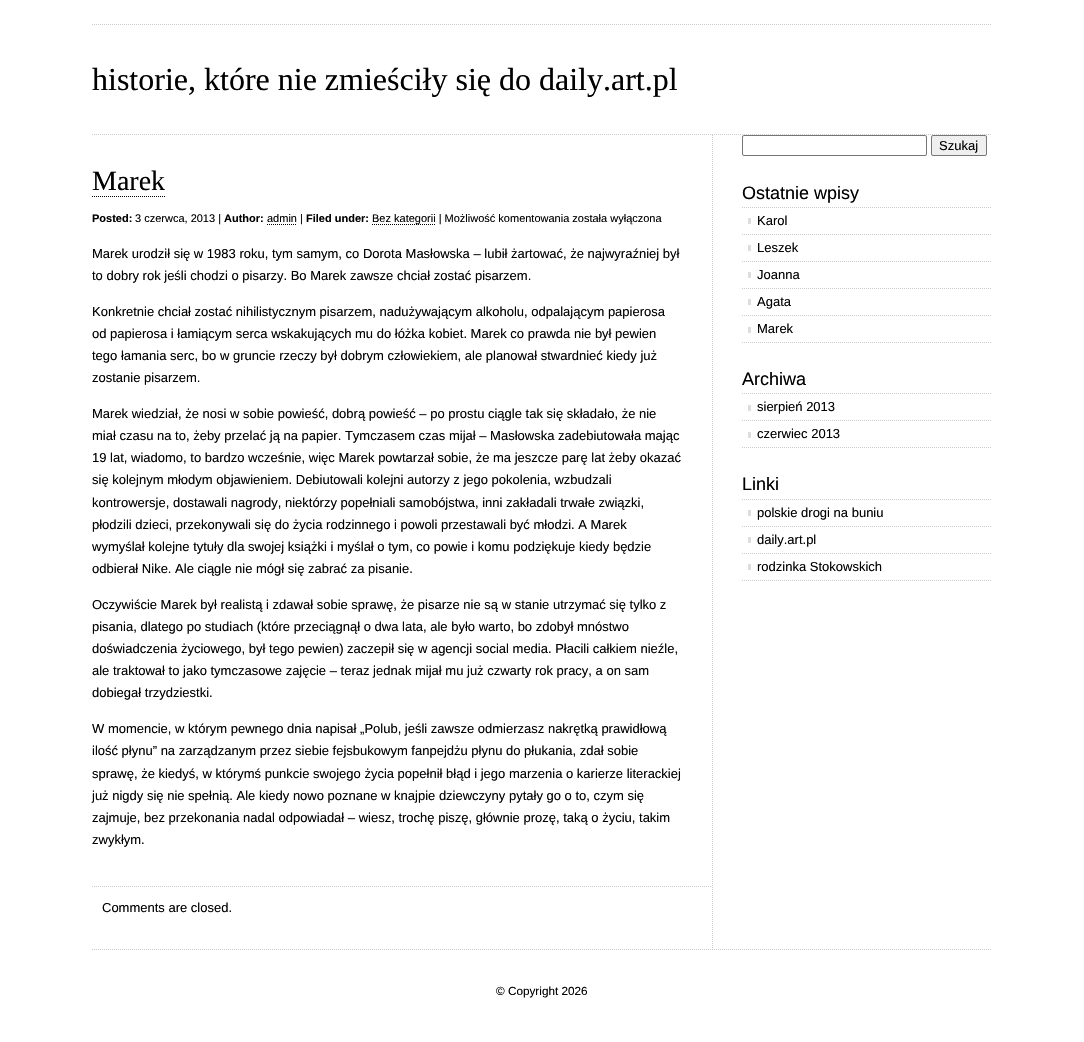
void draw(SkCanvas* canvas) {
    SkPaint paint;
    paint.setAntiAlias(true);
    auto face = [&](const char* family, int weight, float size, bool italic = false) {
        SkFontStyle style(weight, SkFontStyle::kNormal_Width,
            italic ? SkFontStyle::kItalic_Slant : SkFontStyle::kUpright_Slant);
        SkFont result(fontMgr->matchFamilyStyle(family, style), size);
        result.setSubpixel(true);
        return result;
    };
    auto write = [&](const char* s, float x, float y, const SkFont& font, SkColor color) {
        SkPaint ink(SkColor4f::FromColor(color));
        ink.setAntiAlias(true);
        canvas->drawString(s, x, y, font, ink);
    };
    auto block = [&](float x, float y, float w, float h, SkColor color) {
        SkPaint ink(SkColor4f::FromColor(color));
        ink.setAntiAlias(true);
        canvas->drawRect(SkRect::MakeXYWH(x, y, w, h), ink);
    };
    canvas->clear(SK_ColorWHITE);
    paint.setStyle(SkPaint::kStroke_Style);
    paint.setStrokeWidth(1);
    paint.setColor(SkColorSetRGB(204, 204, 204));
    paint.setPathEffect(SkDashPathEffect::Make({{1, 1}}, 0));
    canvas->drawPath(SkPathBuilder().moveTo(92, 24.5f).lineTo(992, 24.5f).detach(), paint);
    paint.setPathEffect(nullptr);
    paint.setPathEffect(SkDashPathEffect::Make({{1, 1}}, 0));
    canvas->drawPath(SkPathBuilder().moveTo(92, 134.5f).lineTo(992, 134.5f).detach(), paint);
    paint.setPathEffect(nullptr);
    auto kFont1 = face("Liberation Serif", 400, 32);
    write("historie, które nie zmieściły się do daily.art.pl", 92, 90, kFont1, SK_ColorBLACK);
    paint.setPathEffect(SkDashPathEffect::Make({{1, 1}}, 0));
    canvas->drawPath(SkPathBuilder().moveTo(712.5f, 135).lineTo(712.5f, 949).detach(), paint);
    paint.setPathEffect(nullptr);
    auto kFont2 = face("Liberation Serif", 400, 28);
    write("Marek", 92, 190, kFont2, SK_ColorBLACK);
    paint.setColor(SK_ColorBLACK);
    paint.setPathEffect(SkDashPathEffect::Make({{1, 1}}, 0));
    canvas->drawPath(SkPathBuilder().moveTo(92, 196.5f).lineTo(165, 196.5f).detach(), paint);
    paint.setPathEffect(nullptr);
    auto kFont3 = face("Liberation Sans", 700, 11);
    write("Posted:", 92, 222, kFont3, SK_ColorBLACK);
    auto kFont4 = face("Liberation Sans", 400, 11);
    write("3 czerwca, 2013 |", 135, 222, kFont4, SK_ColorBLACK);
    write("Author:", 224, 222, kFont3, SK_ColorBLACK);
    paint.setPathEffect(SkDashPathEffect::Make({{1, 1}}, 0));
    canvas->drawPath(SkPathBuilder().moveTo(267, 224.5f).lineTo(297, 224.5f).detach(), paint);
    paint.setPathEffect(nullptr);
    write("admin |", 267, 222, kFont4, SK_ColorBLACK);
    write("Filed under:", 306, 222, kFont3, SK_ColorBLACK);
    paint.setPathEffect(SkDashPathEffect::Make({{1, 1}}, 0));
    canvas->drawPath(SkPathBuilder().moveTo(372, 224.5f).lineTo(436, 224.5f).detach(), paint);
    paint.setPathEffect(nullptr);
    write("Bez kategorii | Możliwość komentowania została wyłączona", 372, 222, kFont4, SK_ColorBLACK);
    auto kFont5 = face("Liberation Sans", 400, 13);
    write("Marek urodził się w 1983 roku, tym samym, co Dorota Masłowska – lubił żartować, że najwyraźniej był", 92, 258, kFont5, SK_ColorBLACK);
    write("to dobry rok jeśli chodzi o pisarzy. Bo Marek zawsze chciał zostać pisarzem.", 92, 280, kFont5, SK_ColorBLACK);
    write("Konkretnie chciał zostać nihilistycznym pisarzem, nadużywającym alkoholu, odpalającym papierosa", 92, 316, kFont5, SK_ColorBLACK);
    write("od papierosa i łamiącym serca wskakujących mu do łóżka kobiet. Marek co prawda nie był pewien", 92, 338, kFont5, SK_ColorBLACK);
    write("tego łamania serc, bo w gruncie rzeczy był dobrym człowiekiem, ale planował stwardnieć kiedy już", 92, 360, kFont5, SK_ColorBLACK);
    write("zostanie pisarzem.", 92, 382, kFont5, SK_ColorBLACK);
    write("Marek wiedział, że nosi w sobie powieść, dobrą powieść – po prostu ciągle tak się składało, że nie", 92, 418, kFont5, SK_ColorBLACK);
    write("miał czasu na to, żeby przelać ją na papier. Tymczasem czas mijał – Masłowska zadebiutowała mając", 92, 440, kFont5, SK_ColorBLACK);
    write("19 lat, wiadomo, to bardzo wcześnie, więc Marek powtarzał sobie, że ma jeszcze parę lat żeby okazać", 92, 462, kFont5, SK_ColorBLACK);
    write("się kolejnym młodym objawieniem. Debiutowali kolejni autorzy z jego pokolenia, wzbudzali", 92, 484, kFont5, SK_ColorBLACK);
    write("kontrowersje, dostawali nagrody, niektórzy popełniali samobójstwa, inni zakładali trwałe związki,", 92, 507, kFont5, SK_ColorBLACK);
    write("płodzili dzieci, przekonywali się do życia rodzinnego i powoli przestawali być młodzi. A Marek", 92, 529, kFont5, SK_ColorBLACK);
    write("wymyślał kolejne tytuły dla swojej książki i myślał o tym, co powie i komu podziękuje kiedy będzie", 92, 551, kFont5, SK_ColorBLACK);
    write("odbierał Nike. Ale ciągle nie mógł się zabrać za pisanie.", 92, 573, kFont5, SK_ColorBLACK);
    write("Oczywiście Marek był realistą i zdawał sobie sprawę, że pisarze nie są w stanie utrzymać się tylko z", 92, 609, kFont5, SK_ColorBLACK);
    write("pisania, dlatego po studiach (które przeciągnął o dwa lata, ale było warto, bo zdobył mnóstwo", 92, 631, kFont5, SK_ColorBLACK);
    write("doświadczenia życiowego, był tego pewien) zaczepił się w agencji social media. Płacili całkiem nieźle,", 92, 653, kFont5, SK_ColorBLACK);
    write("ale traktował to jako tymczasowe zajęcie – teraz jednak mijał mu już czwarty rok pracy, a on sam", 92, 675, kFont5, SK_ColorBLACK);
    write("dobiegał trzydziestki.", 92, 697, kFont5, SK_ColorBLACK);
    write("W momencie, w którym pewnego dnia napisał „Polub, jeśli zawsze odmierzasz nakrętką prawidłową", 92, 733, kFont5, SK_ColorBLACK);
    write("ilość płynu” na zarządzanym przez siebie fejsbukowym fanpejdżu płynu do płukania, zdał sobie", 92, 755, kFont5, SK_ColorBLACK);
    write("sprawę, że kiedyś, w którymś punkcie swojego życia popełnił błąd i jego marzenia o karierze literackiej", 92, 778, kFont5, SK_ColorBLACK);
    write("już nigdy się nie spełnią. Ale kiedy nowo poznane w knajpie dziewczyny pytały go o to, czym się", 92, 800, kFont5, SK_ColorBLACK);
    write("zajmuje, bez przekonania nadal odpowiadał – wiesz, trochę piszę, głównie prozę, taką o życiu, takim", 92, 822, kFont5, SK_ColorBLACK);
    write("zwykłym.", 92, 844, kFont5, SK_ColorBLACK);
    paint.setColor(SkColorSetRGB(204, 204, 204));
    paint.setPathEffect(SkDashPathEffect::Make({{1, 1}}, 0));
    canvas->drawPath(SkPathBuilder().moveTo(92, 886.5f).lineTo(712, 886.5f).detach(), paint);
    paint.setPathEffect(nullptr);
    write("Comments are closed.", 102, 912, kFont5, SK_ColorBLACK);
    paint.setColor(SkColorSetRGB(118, 118, 118));
    canvas->drawRoundRect(SkRect::MakeXYWH(742.5f, 135.5f, 184, 20), 1.5f, 1.5f, paint);
    paint.setStyle(SkPaint::kFill_Style);
    paint.setColor(SkColorSetRGB(239, 239, 239));
    canvas->drawRoundRect(SkRect::MakeXYWH(931.5f, 135.5f, 55, 20), 1.5f, 1.5f, paint);
    paint.setStyle(SkPaint::kStroke_Style);
    paint.setColor(SkColorSetRGB(118, 118, 118));
    canvas->drawRoundRect(SkRect::MakeXYWH(931.5f, 135.5f, 55, 20), 1.5f, 1.5f, paint);
    write("Szukaj", 939, 150, kFont5, SK_ColorBLACK);
    auto kFont6 = face("Liberation Sans", 400, 18);
    write("Ostatnie wpisy", 742, 199, kFont6, SK_ColorBLACK);
    paint.setColor(SkColorSetRGB(204, 204, 204));
    paint.setPathEffect(SkDashPathEffect::Make({{1, 1}}, 0));
    canvas->drawPath(SkPathBuilder().moveTo(742, 342.5f).lineTo(992, 342.5f).detach(), paint);
    paint.setPathEffect(nullptr);
    paint.setPathEffect(SkDashPathEffect::Make({{1, 1}}, 0));
    canvas->drawPath(SkPathBuilder().moveTo(742, 207.5f).lineTo(992, 207.5f).detach(), paint);
    paint.setPathEffect(nullptr);
    block(748, 218, 3, 6, SkColorSetRGB(221, 221, 221));
    write("Karol", 757, 225, kFont5, SK_ColorBLACK);
    paint.setPathEffect(SkDashPathEffect::Make({{1, 1}}, 0));
    canvas->drawPath(SkPathBuilder().moveTo(742, 234.5f).lineTo(992, 234.5f).detach(), paint);
    paint.setPathEffect(nullptr);
    block(748, 245, 3, 6, SkColorSetRGB(221, 221, 221));
    write("Leszek", 757, 252, kFont5, SK_ColorBLACK);
    paint.setPathEffect(SkDashPathEffect::Make({{1, 1}}, 0));
    canvas->drawPath(SkPathBuilder().moveTo(742, 261.5f).lineTo(992, 261.5f).detach(), paint);
    paint.setPathEffect(nullptr);
    block(748, 272, 3, 6, SkColorSetRGB(221, 221, 221));
    write("Joanna", 757, 279, kFont5, SK_ColorBLACK);
    paint.setPathEffect(SkDashPathEffect::Make({{1, 1}}, 0));
    canvas->drawPath(SkPathBuilder().moveTo(742, 288.5f).lineTo(992, 288.5f).detach(), paint);
    paint.setPathEffect(nullptr);
    block(748, 299, 3, 6, SkColorSetRGB(221, 221, 221));
    write("Agata", 757, 306, kFont5, SK_ColorBLACK);
    paint.setPathEffect(SkDashPathEffect::Make({{1, 1}}, 0));
    canvas->drawPath(SkPathBuilder().moveTo(742, 315.5f).lineTo(992, 315.5f).detach(), paint);
    paint.setPathEffect(nullptr);
    block(748, 327, 3, 6, SkColorSetRGB(221, 221, 221));
    write("Marek", 757, 333, kFont5, SK_ColorBLACK);
    write("Archiwa", 742, 385, kFont6, SK_ColorBLACK);
    paint.setPathEffect(SkDashPathEffect::Make({{1, 1}}, 0));
    canvas->drawPath(SkPathBuilder().moveTo(742, 447.5f).lineTo(992, 447.5f).detach(), paint);
    paint.setPathEffect(nullptr);
    paint.setPathEffect(SkDashPathEffect::Make({{1, 1}}, 0));
    canvas->drawPath(SkPathBuilder().moveTo(742, 393.5f).lineTo(992, 393.5f).detach(), paint);
    paint.setPathEffect(nullptr);
    block(748, 405, 3, 6, SkColorSetRGB(221, 221, 221));
    write("sierpień 2013", 757, 411, kFont5, SK_ColorBLACK);
    paint.setPathEffect(SkDashPathEffect::Make({{1, 1}}, 0));
    canvas->drawPath(SkPathBuilder().moveTo(742, 420.5f).lineTo(992, 420.5f).detach(), paint);
    paint.setPathEffect(nullptr);
    block(748, 432, 3, 6, SkColorSetRGB(221, 221, 221));
    write("czerwiec 2013", 757, 438, kFont5, SK_ColorBLACK);
    write("Linki", 742, 490, kFont6, SK_ColorBLACK);
    paint.setPathEffect(SkDashPathEffect::Make({{1, 1}}, 0));
    canvas->drawPath(SkPathBuilder().moveTo(742, 580.5f).lineTo(992, 580.5f).detach(), paint);
    paint.setPathEffect(nullptr);
    paint.setPathEffect(SkDashPathEffect::Make({{1, 1}}, 0));
    canvas->drawPath(SkPathBuilder().moveTo(742, 499.5f).lineTo(992, 499.5f).detach(), paint);
    paint.setPathEffect(nullptr);
    block(748, 510, 3, 6, SkColorSetRGB(221, 221, 221));
    write("polskie drogi na buniu", 757, 517, kFont5, SK_ColorBLACK);
    paint.setPathEffect(SkDashPathEffect::Make({{1, 1}}, 0));
    canvas->drawPath(SkPathBuilder().moveTo(742, 526.5f).lineTo(992, 526.5f).detach(), paint);
    paint.setPathEffect(nullptr);
    block(748, 537, 3, 6, SkColorSetRGB(221, 221, 221));
    write("daily.art.pl", 757, 544, kFont5, SK_ColorBLACK);
    paint.setPathEffect(SkDashPathEffect::Make({{1, 1}}, 0));
    canvas->drawPath(SkPathBuilder().moveTo(742, 553.5f).lineTo(992, 553.5f).detach(), paint);
    paint.setPathEffect(nullptr);
    block(748, 564, 3, 6, SkColorSetRGB(221, 221, 221));
    write("rodzinka Stokowskich", 757, 571, kFont5, SK_ColorBLACK);
    paint.setPathEffect(SkDashPathEffect::Make({{1, 1}}, 0));
    canvas->drawPath(SkPathBuilder().moveTo(92, 949.5f).lineTo(992, 949.5f).detach(), paint);
    paint.setPathEffect(nullptr);
    auto kFont7 = face("Liberation Sans", 400, 11.75f);
    write("© Copyright 2026", 496, 995, kFont7, SK_ColorBLACK);
}
